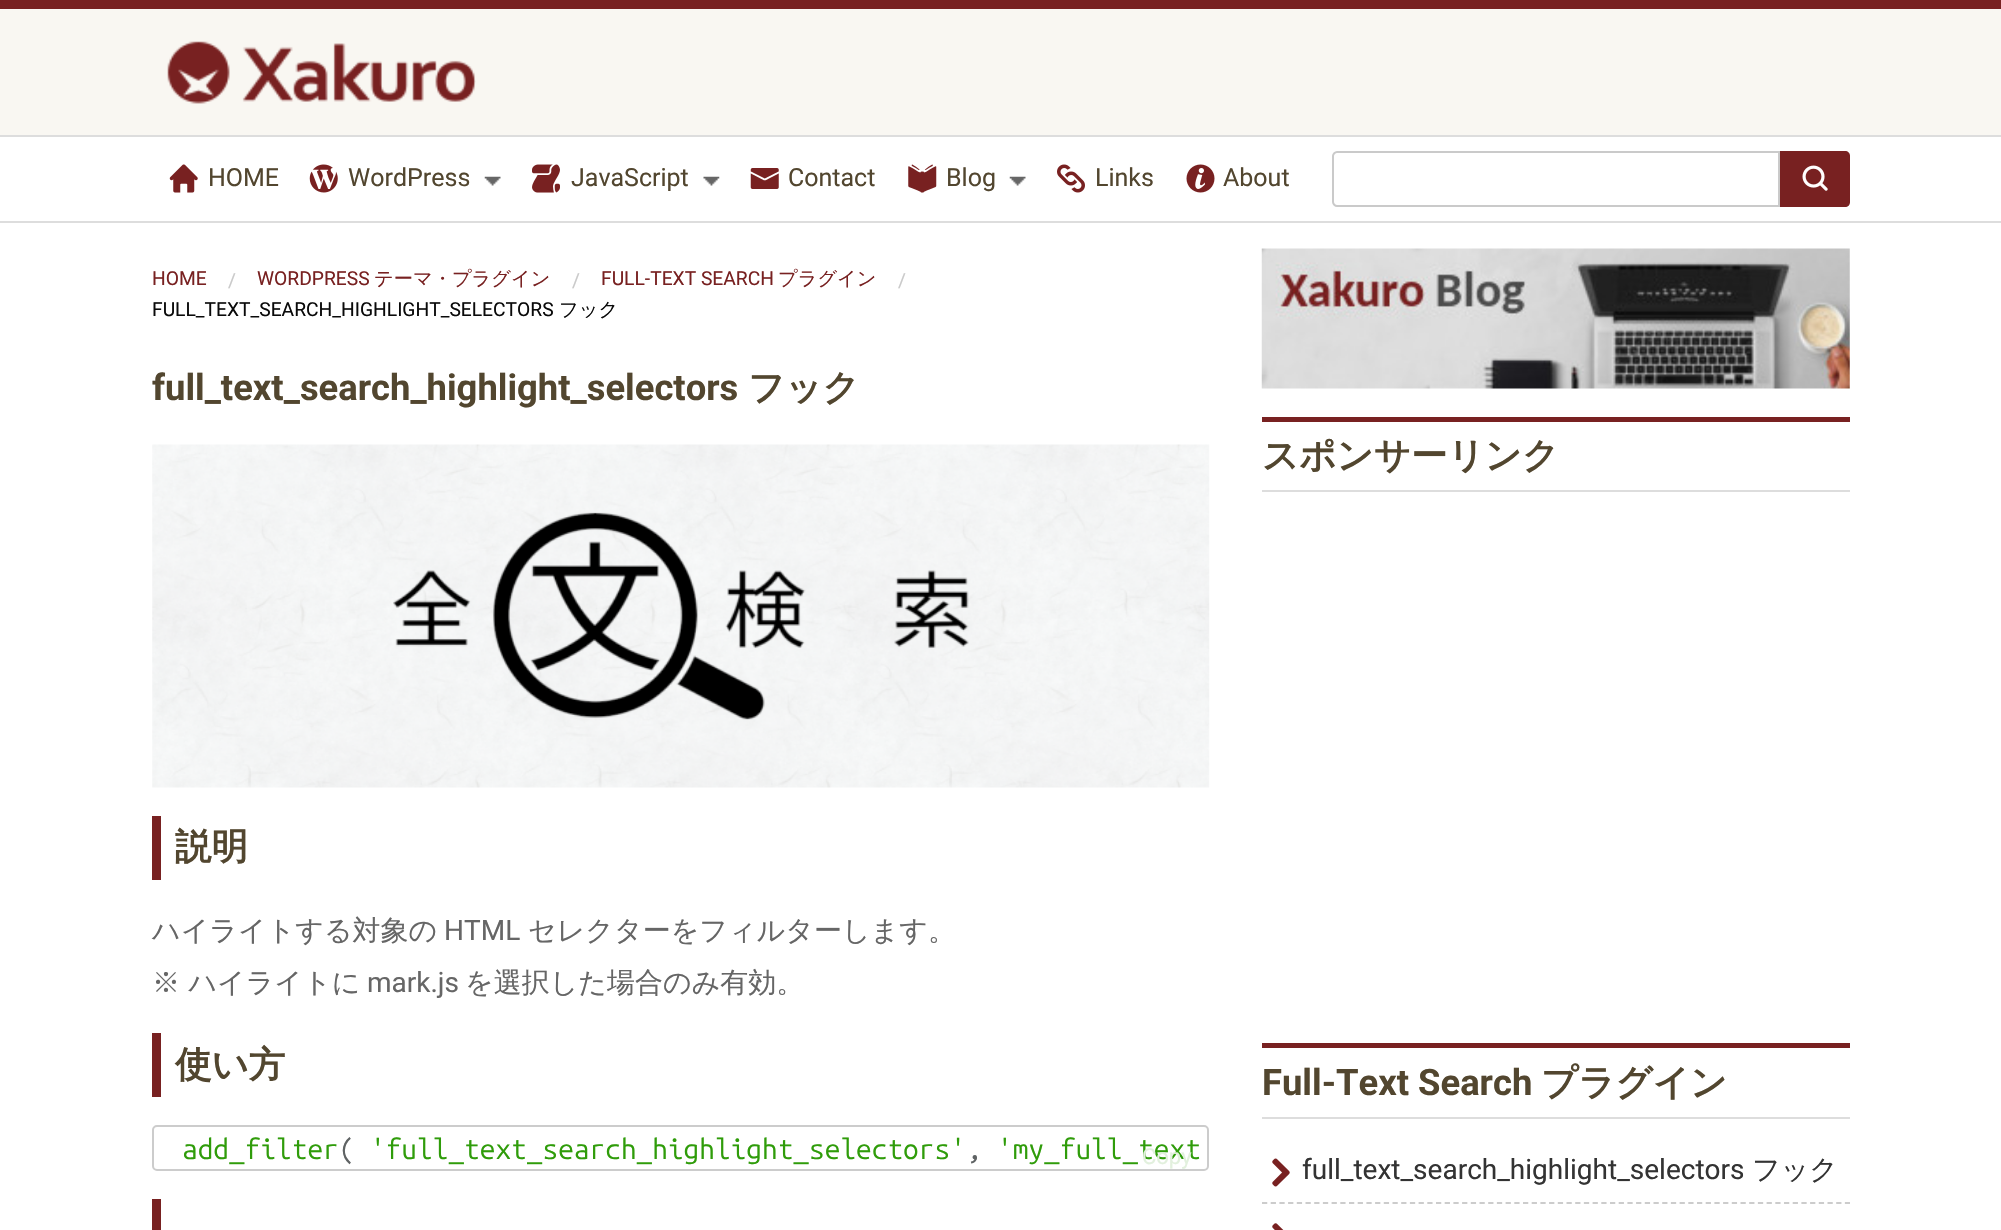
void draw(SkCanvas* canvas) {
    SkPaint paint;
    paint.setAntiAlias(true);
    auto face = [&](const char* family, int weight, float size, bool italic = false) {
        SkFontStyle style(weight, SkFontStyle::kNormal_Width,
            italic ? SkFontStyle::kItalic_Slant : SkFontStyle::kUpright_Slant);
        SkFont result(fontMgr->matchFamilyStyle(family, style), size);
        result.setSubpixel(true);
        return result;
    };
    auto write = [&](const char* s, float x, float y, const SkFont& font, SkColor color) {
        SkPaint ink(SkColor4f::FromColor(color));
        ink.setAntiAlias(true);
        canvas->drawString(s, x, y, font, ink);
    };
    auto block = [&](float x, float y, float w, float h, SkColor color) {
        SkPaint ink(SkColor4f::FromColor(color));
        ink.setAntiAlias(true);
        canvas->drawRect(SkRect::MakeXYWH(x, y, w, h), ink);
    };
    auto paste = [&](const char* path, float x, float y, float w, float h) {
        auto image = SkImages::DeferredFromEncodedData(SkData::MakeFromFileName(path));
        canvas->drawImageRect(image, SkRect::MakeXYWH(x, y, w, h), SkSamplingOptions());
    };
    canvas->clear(SK_ColorWHITE);
    block(0, 0, 2001, 9, SkColorSetRGB(120, 33, 33));
    block(0, 9, 2001, 126, SkColorSetRGB(249, 247, 242));
    block(0, 135, 2001, 2, SkColorSetRGB(221, 221, 221));
    paste("pic1.png", 167, 41, 309, 63);
    block(0, 221, 2001, 2, SkColorSetRGB(221, 221, 221));
    paste("pic2.png", 169, 164, 29, 29);
    auto kFont1 = face("Roboto", 400, 25);
    write("HOME", 208, 186, kFont1, SkColorSetRGB(82, 70, 47));
    paste("pic3.png", 309, 164, 29, 29);
    write("WordPress", 348, 186, kFont1, SkColorSetRGB(82, 70, 47));
    paste("pic4.png", 484, 176, 17, 10);
    paste("pic5.png", 532, 164, 28, 29);
    write("JavaScript", 571, 186, kFont1, SkColorSetRGB(82, 70, 47));
    paste("pic6.png", 703, 176, 17, 10);
    paste("pic7.png", 750, 168, 29, 21);
    write("Contact", 788, 186, kFont1, SkColorSetRGB(82, 70, 47));
    paste("pic8.png", 908, 164, 29, 29);
    write("Blog", 946, 186, kFont1, SkColorSetRGB(82, 70, 47));
    paste("pic9.png", 1009, 176, 17, 10);
    paste("pic10.png", 1057, 164, 28, 29);
    write("Links", 1095, 186, kFont1, SkColorSetRGB(82, 70, 47));
    paste("pic11.png", 1186, 164, 29, 29);
    write("About", 1223, 186, kFont1, SkColorSetRGB(82, 70, 47));
    paint.setStyle(SkPaint::kStroke_Style);
    paint.setStrokeWidth(2);
    paint.setColor(SkColorSetRGB(202, 202, 202));
    canvas->drawPath(SkPathBuilder().moveTo(1337, 152).lineTo(1779, 152).lineTo(1779, 206).lineTo(1337, 206).cubicTo(1335, 206, 1333, 204, 1333, 202).lineTo(1333, 156).cubicTo(1333, 154, 1335, 152, 1337, 152).close().detach(), paint);
    paint.setStyle(SkPaint::kFill_Style);
    paint.setColor(SkColorSetRGB(120, 33, 33));
    canvas->drawPath(SkPathBuilder().moveTo(1780, 151).lineTo(1845, 151).cubicTo(1848, 151, 1850, 153, 1850, 156).lineTo(1850, 202).cubicTo(1850, 205, 1848, 207, 1845, 207).lineTo(1780, 207).close().detach(), paint);
    paste("pic12.png", 1802, 165, 26, 26);
    auto kFont2 = face("Roboto", 400, 19.25f);
    write("HOME", 152, 285, kFont2, SkColorSetRGB(120, 33, 33));
    write("/", 228, 287, kFont2, SkColorSetRGB(202, 202, 202));
    write("WORDPRESS", 257, 285, kFont2, SkColorSetRGB(120, 33, 33));
    auto kFont3 = face("WenQuanYi Zen Hei", 500, 19.25f);
    write("テーマ・プラグイン", 374, 285, kFont3, SkColorSetRGB(120, 33, 33));
    write("/", 572, 287, kFont2, SkColorSetRGB(202, 202, 202));
    write("FULL-TEXT SEARCH", 601, 285, kFont2, SkColorSetRGB(120, 33, 33));
    write("プラグイン", 778, 285, kFont3, SkColorSetRGB(120, 33, 33));
    write("/", 898, 287, kFont2, SkColorSetRGB(202, 202, 202));
    write("FULL_TEXT_SEARCH_HIGHLIGHT_SELECTORS", 152, 316, kFont2, SkColorSetRGB(10, 10, 10));
    write("フック", 559, 316, kFont3, SkColorSetRGB(10, 10, 10));
    auto kFont4 = face("Roboto", 700, 36.4f);
    write("full_text_search_highlight_selectors", 152, 400, kFont4, SkColorSetRGB(82, 70, 47));
    auto kFont5 = face("WenQuanYi Zen Hei", 700, 36.4f);
    write("フック", 748, 400, kFont5, SkColorSetRGB(82, 70, 47));
    paste("pic13.png", 152, 444, 1058, 344);
    block(152, 816, 9, 64, SkColorSetRGB(120, 33, 33));
    write("説明", 175, 859, kFont5, SkColorSetRGB(82, 70, 47));
    auto kFont6 = face("WenQuanYi Zen Hei", 500, 28);
    write("ハイライトする対象の", 152, 940, kFont6, SkColorSetRGB(102, 102, 102));
    auto kFont7 = face("Roboto", 400, 28);
    write("HTML", 444, 940, kFont7, SkColorSetRGB(102, 102, 102));
    write("セレクターをフィルターします。", 528, 940, kFont6, SkColorSetRGB(102, 102, 102));
    write("※ ハイライトに", 152, 992, kFont6, SkColorSetRGB(102, 102, 102));
    write("mark.js", 367, 992, kFont7, SkColorSetRGB(102, 102, 102));
    write("を選択した場合のみ有効。", 465, 992, kFont6, SkColorSetRGB(102, 102, 102));
    block(152, 1033, 9, 64, SkColorSetRGB(120, 33, 33));
    write("使い方", 175, 1077, kFont5, SkColorSetRGB(82, 70, 47));
    paint.setStyle(SkPaint::kStroke_Style);
    paint.setColor(SkColorSetRGB(204, 204, 204));
    canvas->drawRoundRect(SkRect::MakeXYWH(153, 1126, 1055, 44), 4, 4, paint);
    auto kFont8 = face("Ubuntu Mono", 400, 28);
    write("add_filter", 182, 1159, kFont8, SkColorSetRGB(47, 156, 10));
    write("(", 339, 1159, kFont8, SkColorSetRGB(95, 99, 100));
    write("'full_text_search_highlight_selectors'", 370, 1159, kFont8, SkColorSetRGB(47, 156, 10));
    write(",", 966, 1159, kFont8, SkColorSetRGB(95, 99, 100));
    write("'my_full_text", 997, 1159, kFont8, SkColorSetRGB(47, 156, 10));
    auto kFont9 = face("Roboto", 400, 22);
    write("Copy", 1142, 1164, kFont9, SkColorSetRGB(226, 240, 221));
    block(152, 1199, 9, 31, SkColorSetRGB(120, 33, 33));
    paste("pic14.png", 1261, 248, 589, 141);
    block(1262, 417, 588, 5, SkColorSetRGB(120, 33, 33));
    block(1262, 490, 588, 2, SkColorSetRGB(221, 221, 221));
    write("スポンサーリンク", 1262, 468, kFont5, SkColorSetRGB(82, 70, 47));
    block(1262, 1043, 588, 5, SkColorSetRGB(120, 33, 33));
    block(1262, 1117, 588, 2, SkColorSetRGB(221, 221, 221));
    write("Full-Text Search", 1262, 1095, kFont4, SkColorSetRGB(82, 70, 47));
    write("プラグイン", 1541, 1095, kFont5, SkColorSetRGB(82, 70, 47));
    paste("pic15.png", 1272, 1158, 18, 29);
    write("full_text_search_highlight_selectors", 1302, 1179, kFont7, SkColorSetRGB(51, 51, 51));
    write("フック", 1752, 1179, kFont6, SkColorSetRGB(51, 51, 51));
    paint.setStrokeWidth(1.8f);
    paint.setPathEffect(SkDashPathEffect::Make({{5.25f, 3.45f}}, 0));
    canvas->drawPath(SkPathBuilder().moveTo(1262, 1203).lineTo(1850, 1203).detach(), paint);
    paint.setPathEffect(nullptr);
    paste("pic16.png", 1272, 1223, 12, 7);
}
